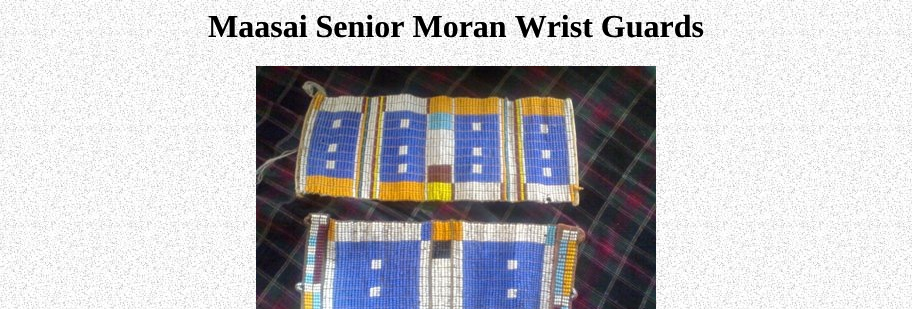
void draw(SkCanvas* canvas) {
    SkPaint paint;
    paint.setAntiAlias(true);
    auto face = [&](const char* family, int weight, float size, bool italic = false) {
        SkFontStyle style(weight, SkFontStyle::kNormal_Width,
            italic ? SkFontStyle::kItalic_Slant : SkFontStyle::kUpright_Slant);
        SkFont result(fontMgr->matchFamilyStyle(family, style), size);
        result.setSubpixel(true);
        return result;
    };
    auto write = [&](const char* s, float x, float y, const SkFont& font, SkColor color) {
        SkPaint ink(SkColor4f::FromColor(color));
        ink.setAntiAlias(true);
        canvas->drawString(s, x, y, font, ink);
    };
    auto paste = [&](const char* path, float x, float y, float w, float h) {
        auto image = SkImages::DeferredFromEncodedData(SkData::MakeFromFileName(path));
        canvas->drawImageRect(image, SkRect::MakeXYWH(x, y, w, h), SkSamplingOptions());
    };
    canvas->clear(SK_ColorWHITE);
    paste("pic1.png", 0, 0, 912, 309);
    auto kFont1 = face("Liberation Serif", 700, 32);
    write("Maasai Senior Moran Wrist Guards", 208, 37, kFont1, SK_ColorBLACK);
    paste("pic2.png", 256, 66, 400, 243);
}
